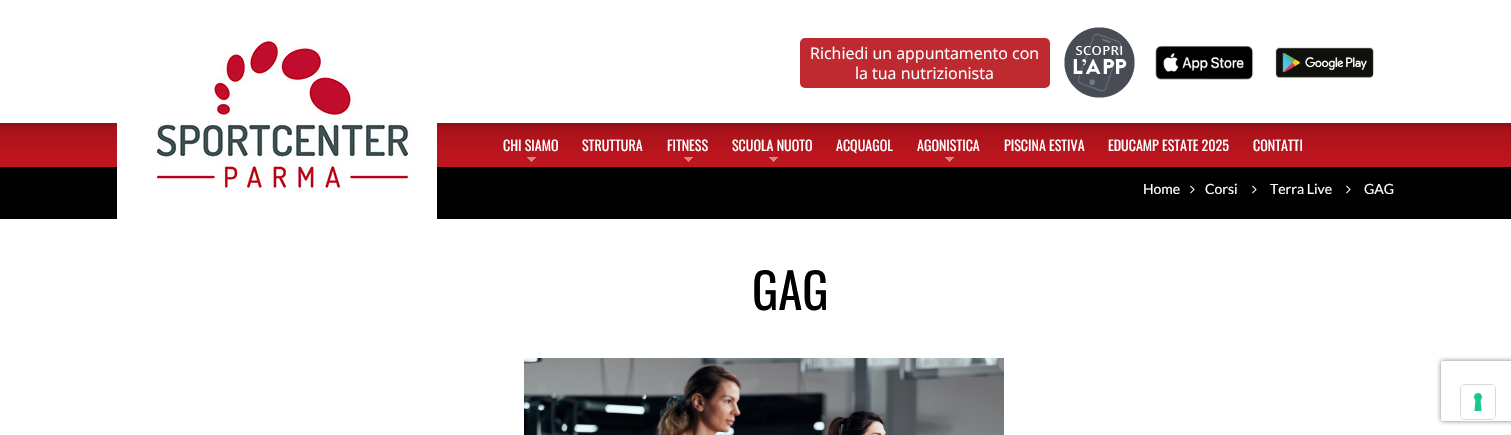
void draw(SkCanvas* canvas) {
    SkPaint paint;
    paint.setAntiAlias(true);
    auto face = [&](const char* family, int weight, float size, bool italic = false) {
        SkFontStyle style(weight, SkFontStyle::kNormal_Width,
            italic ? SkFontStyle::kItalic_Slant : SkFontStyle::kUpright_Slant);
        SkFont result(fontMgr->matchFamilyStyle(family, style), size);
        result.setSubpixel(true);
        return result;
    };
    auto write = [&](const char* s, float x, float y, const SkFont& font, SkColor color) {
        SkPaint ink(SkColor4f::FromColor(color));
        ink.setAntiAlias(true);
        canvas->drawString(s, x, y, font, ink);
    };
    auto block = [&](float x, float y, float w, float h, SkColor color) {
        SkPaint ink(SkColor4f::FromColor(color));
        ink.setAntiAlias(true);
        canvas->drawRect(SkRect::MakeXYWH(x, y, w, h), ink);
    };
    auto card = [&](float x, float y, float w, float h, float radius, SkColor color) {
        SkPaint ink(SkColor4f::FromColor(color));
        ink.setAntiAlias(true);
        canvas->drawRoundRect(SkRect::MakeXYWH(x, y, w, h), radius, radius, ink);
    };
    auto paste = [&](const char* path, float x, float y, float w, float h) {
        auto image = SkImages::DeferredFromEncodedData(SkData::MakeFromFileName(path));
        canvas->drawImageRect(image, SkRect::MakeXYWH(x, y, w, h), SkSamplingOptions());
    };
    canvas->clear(SK_ColorWHITE);
    card(800, 38, 250, 50, 5, SkColorSetRGB(190, 42, 47));
    auto kFont1 = face("Open Sans", 400, 16);
    write("Richiedi un appuntamento con", 810, 59, kFont1, SK_ColorWHITE);
    write("la tua nutrizionista", 855, 79, kFont1, SK_ColorWHITE);
    paste("pic1.png", 1064, 27, 71, 71);
    paste("pic2.png", 1155, 45, 99, 35);
    paste("pic3.png", 1275, 47, 99, 31);
    paste("pic6.png", 0, 123, 1511, 44);
    paste("pic4.png", 117, 36, 320, 183);
    auto kFont2 = face("Oswald", 400, 14);
    write("CHI SIAMO", 503, 151, kFont2, SK_ColorWHITE);
    paste("pic5.png", 527, 157, 9, 5);
    write("STRUTTURA", 582, 151, kFont2, SK_ColorWHITE);
    write("FITNESS", 667, 151, kFont2, SK_ColorWHITE);
    paste("pic5.png", 684, 157, 9, 5);
    write("SCUOLA NUOTO", 732, 151, kFont2, SK_ColorWHITE);
    paste("pic5.png", 769, 157, 9, 5);
    write("ACQUAGOL", 836, 151, kFont2, SK_ColorWHITE);
    write("AGONISTICA", 917, 151, kFont2, SK_ColorWHITE);
    paste("pic5.png", 945, 157, 9, 5);
    write("PISCINA ESTIVA", 1004, 151, kFont2, SK_ColorWHITE);
    write("EDUCAMP ESTATE 2025", 1108, 151, kFont2, SK_ColorWHITE);
    write("CONTATTI", 1253, 151, kFont2, SK_ColorWHITE);
    block(437, 167, 1074, 52, SK_ColorBLACK);
    block(0, 167, 117, 52, SK_ColorBLACK);
    auto kFont3 = face("Lato", 400, 14);
    write("Home", 1143, 194, kFont3, SK_ColorWHITE);
    paste("pic7.png", 1190, 185, 5, 9);
    write("Corsi", 1205, 194, kFont3, SK_ColorWHITE);
    paste("pic7.png", 1252, 185, 5, 9);
    write("Terra Live", 1270, 194, kFont3, SK_ColorWHITE);
    paste("pic7.png", 1346, 185, 5, 9);
    write("GAG", 1364, 194, kFont3, SK_ColorWHITE);
    auto kFont4 = face("Oswald", 400, 49);
    write("GAG", 752, 310, kFont4, SK_ColorBLACK);
    paste("pic8.png", 524, 358, 480, 77);
    canvas->save();
    canvas->clipPath(SkPathBuilder(SkPathFillType::kEvenOdd).moveTo(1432, 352).lineTo(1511, 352).lineTo(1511, 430).lineTo(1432, 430).close().moveTo(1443, 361).lineTo(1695, 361).cubicTo(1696, 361, 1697, 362, 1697, 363).lineTo(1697, 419).cubicTo(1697, 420, 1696, 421, 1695, 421).lineTo(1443, 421).cubicTo(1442, 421, 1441, 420, 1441, 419).lineTo(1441, 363).cubicTo(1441, 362, 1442, 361, 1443, 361).close().detach(), true);
    paint.setColor(SkColorSetRGB(128, 128, 128));
    paint.setMaskFilter(SkMaskFilter::MakeBlur(kNormal_SkBlurStyle, 2.5f));
    canvas->drawRoundRect(SkRect::MakeXYWH(1441, 361, 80, 60), 2, 2, paint);
    paint.setMaskFilter(nullptr);
    canvas->restore();
    paint.setStyle(SkPaint::kStroke_Style);
    paint.setStrokeWidth(1);
    paint.setColor(SkColorSetRGB(217, 217, 217));
    canvas->drawRoundRect(SkRect::MakeXYWH(1460.5f, 384.5f, 35, 35), 4.5f, 4.5f, paint);
    card(1461, 385, 34, 34, 4, SK_ColorWHITE);
    paste("pic9.png", 1474, 393, 8, 18);
}
